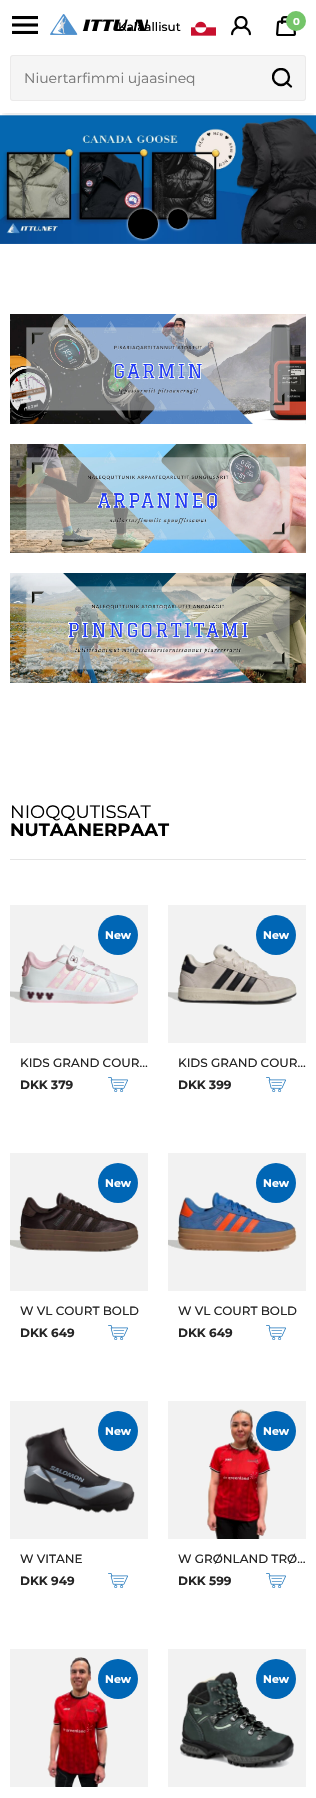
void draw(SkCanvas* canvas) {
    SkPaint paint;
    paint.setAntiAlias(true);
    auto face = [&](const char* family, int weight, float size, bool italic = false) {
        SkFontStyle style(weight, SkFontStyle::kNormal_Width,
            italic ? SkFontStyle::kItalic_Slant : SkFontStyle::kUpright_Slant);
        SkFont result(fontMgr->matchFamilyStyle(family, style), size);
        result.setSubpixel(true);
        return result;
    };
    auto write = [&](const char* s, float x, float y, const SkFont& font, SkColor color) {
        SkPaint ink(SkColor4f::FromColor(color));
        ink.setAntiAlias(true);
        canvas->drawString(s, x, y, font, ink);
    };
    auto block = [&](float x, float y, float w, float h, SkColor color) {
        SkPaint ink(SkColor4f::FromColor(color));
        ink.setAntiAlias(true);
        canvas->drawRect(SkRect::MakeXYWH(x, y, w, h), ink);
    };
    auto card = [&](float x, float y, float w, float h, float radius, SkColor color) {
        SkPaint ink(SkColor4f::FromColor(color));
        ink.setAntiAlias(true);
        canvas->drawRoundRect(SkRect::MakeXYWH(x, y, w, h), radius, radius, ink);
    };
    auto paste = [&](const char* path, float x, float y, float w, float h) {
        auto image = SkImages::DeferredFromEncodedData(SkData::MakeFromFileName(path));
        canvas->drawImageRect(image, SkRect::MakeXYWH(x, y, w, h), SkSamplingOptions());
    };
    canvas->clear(SK_ColorWHITE);
    paste("pic6.png", 0, 115, 316, 129);
    canvas->save();
    canvas->clipRect(SkRect::MakeXYWH(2, 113, 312, 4));
    paint.setColor(SkColorSetARGB(26, 0, 0, 0));
    paint.setMaskFilter(SkMaskFilter::MakeBlur(kNormal_SkBlurStyle, 2.5f));
    canvas->drawRect(SkRect::MakeXYWH(3, 8, 310, 107), paint);
    paint.setMaskFilter(nullptr);
    canvas->restore();
    paste("pic1.png", 12, 16, 26, 18);
    paste("pic2.png", 50, 14, 98, 21);
    paste("pic3.png", 191, 21, 25, 15);
    auto kFont1 = face("Montserrat", 500, 12);
    write("Kalaallisut", 118, 31, kFont1, SK_ColorBLACK);
    paste("pic4.png", 231, 16, 20, 20);
    paste("pic5.png", 276, 16, 20, 20);
    paint.setColor(SkColorSetRGB(116, 197, 105));
    canvas->drawCircle(296, 21, 10, paint);
    auto kFont2 = face("Montserrat", 700, 10);
    write("0", 293, 25, kFont2, SK_ColorWHITE);
    card(10, 55, 296, 46, 3, SkColorSetRGB(245, 245, 245));
    paint.setStyle(SkPaint::kStroke_Style);
    paint.setStrokeWidth(2.3f);
    paint.setStrokeCap(SkPaint::kRound_Cap);
    paint.setStrokeJoin(SkPaint::kRound_Join);
    paint.setColor(SK_ColorBLACK);
    canvas->drawPath(SkPathBuilder().moveTo(291, 86.5f).lineTo(286.5f, 82.5f).detach(), paint);
    canvas->save();
    canvas->clipRect(SkRect::MakeXYWH(272, 68, 20, 20));
    paint.setStrokeCap(SkPaint::kButt_Cap);
    paint.setStrokeJoin(SkPaint::kMiter_Join);
    canvas->drawCircle(281, 77, 8, paint);
    canvas->restore();
    paint.setStrokeWidth(1);
    paint.setColor(SkColorSetRGB(235, 234, 234));
    canvas->drawRoundRect(SkRect::MakeXYWH(10.5f, 55.5f, 295, 45), 2.5f, 2.5f, paint);
    auto kFont3 = face("Montserrat", 400, 14);
    write("Niuertarfimmi ujaasineq", 24, 83, kFont3, SkColorSetRGB(117, 117, 117));
    paint.setStyle(SkPaint::kFill_Style);
    paint.setColor(SkColorSetARGB(128, 255, 255, 255));
    paint.setMaskFilter(SkMaskFilter::MakeBlur(kNormal_SkBlurStyle, 1));
    canvas->drawRoundRect(SkRect::MakeXYWH(127, 208, 32, 32), 16, 16, paint);
    paint.setMaskFilter(nullptr);
    paint.setColor(SK_ColorBLACK);
    canvas->drawCircle(143, 224, 15, paint);
    paint.setColor(SkColorSetARGB(128, 255, 255, 255));
    paint.setMaskFilter(SkMaskFilter::MakeBlur(kNormal_SkBlurStyle, 1));
    canvas->drawRoundRect(SkRect::MakeXYWH(167, 208, 22, 22), 11, 11, paint);
    paint.setMaskFilter(nullptr);
    paint.setColor(SK_ColorBLACK);
    canvas->drawCircle(178, 219, 10, paint);
    paste("pic7.png", 10, 314, 296, 110);
    paste("pic8.png", 10, 444, 296, 109);
    paste("pic9.png", 10, 573, 296, 110);
    block(10, 859, 296, 1, SkColorSetRGB(229, 229, 229));
    auto kFont4 = face("Montserrat", 400, 18);
    write("NIOQQUTISSAT", 10, 818, kFont4, SK_ColorBLACK);
    auto kFont5 = face("Montserrat", 700, 18);
    write("NUTAANERPAAT", 10, 836, kFont5, SK_ColorBLACK);
    paste("pic10.png", 10, 905, 138, 138);
    paint.setColor(SkColorSetRGB(0, 102, 181));
    canvas->drawCircle(118, 935, 20, paint);
    auto kFont6 = face("Montserrat", 700, 11);
    write("New", 105, 939, kFont6, SK_ColorWHITE);
    write("KIDS GRAND COUR…", 20, 1067, kFont1, SkColorSetRGB(37, 37, 37));
    paste("pic11.png", 108, 1077, 20, 15);
    auto kFont7 = face("Montserrat", 700, 12);
    write("DKK 379", 20, 1089, kFont7, SkColorSetRGB(37, 37, 37));
    paste("pic12.png", 168, 905, 138, 138);
    canvas->drawCircle(276, 935, 20, paint);
    write("New", 263, 939, kFont6, SK_ColorWHITE);
    write("KIDS GRAND COUR…", 178, 1067, kFont1, SkColorSetRGB(37, 37, 37));
    paste("pic11.png", 266, 1077, 20, 15);
    write("DKK 399", 178, 1089, kFont7, SkColorSetRGB(37, 37, 37));
    paste("pic13.png", 10, 1153, 138, 138);
    canvas->drawCircle(118, 1183, 20, paint);
    write("New", 105, 1187, kFont6, SK_ColorWHITE);
    write("W VL COURT BOLD", 20, 1315, kFont1, SkColorSetRGB(37, 37, 37));
    paste("pic11.png", 108, 1325, 20, 15);
    write("DKK 649", 20, 1337, kFont7, SkColorSetRGB(37, 37, 37));
    paste("pic14.png", 168, 1153, 138, 138);
    canvas->drawCircle(276, 1183, 20, paint);
    write("New", 263, 1187, kFont6, SK_ColorWHITE);
    write("W VL COURT BOLD", 178, 1315, kFont1, SkColorSetRGB(37, 37, 37));
    paste("pic11.png", 266, 1325, 20, 15);
    write("DKK 649", 178, 1337, kFont7, SkColorSetRGB(37, 37, 37));
    paste("pic15.png", 10, 1401, 138, 138);
    canvas->drawCircle(118, 1431, 20, paint);
    write("New", 105, 1435, kFont6, SK_ColorWHITE);
    write("W VITANE", 20, 1563, kFont1, SkColorSetRGB(37, 37, 37));
    paste("pic11.png", 108, 1573, 20, 15);
    write("DKK 949", 20, 1585, kFont7, SkColorSetRGB(37, 37, 37));
    paste("pic16.png", 168, 1401, 138, 138);
    canvas->drawCircle(276, 1431, 20, paint);
    write("New", 263, 1435, kFont6, SK_ColorWHITE);
    write("W GRØNLAND TRØ…", 178, 1563, kFont1, SkColorSetRGB(37, 37, 37));
    paste("pic11.png", 266, 1573, 20, 15);
    write("DKK 599", 178, 1585, kFont7, SkColorSetRGB(37, 37, 37));
    paste("pic17.png", 10, 1649, 138, 138);
    canvas->drawCircle(118, 1679, 20, paint);
    write("New", 105, 1683, kFont6, SK_ColorWHITE);
    paste("pic18.png", 168, 1649, 138, 138);
    canvas->drawCircle(276, 1679, 20, paint);
    write("New", 263, 1683, kFont6, SK_ColorWHITE);
}
